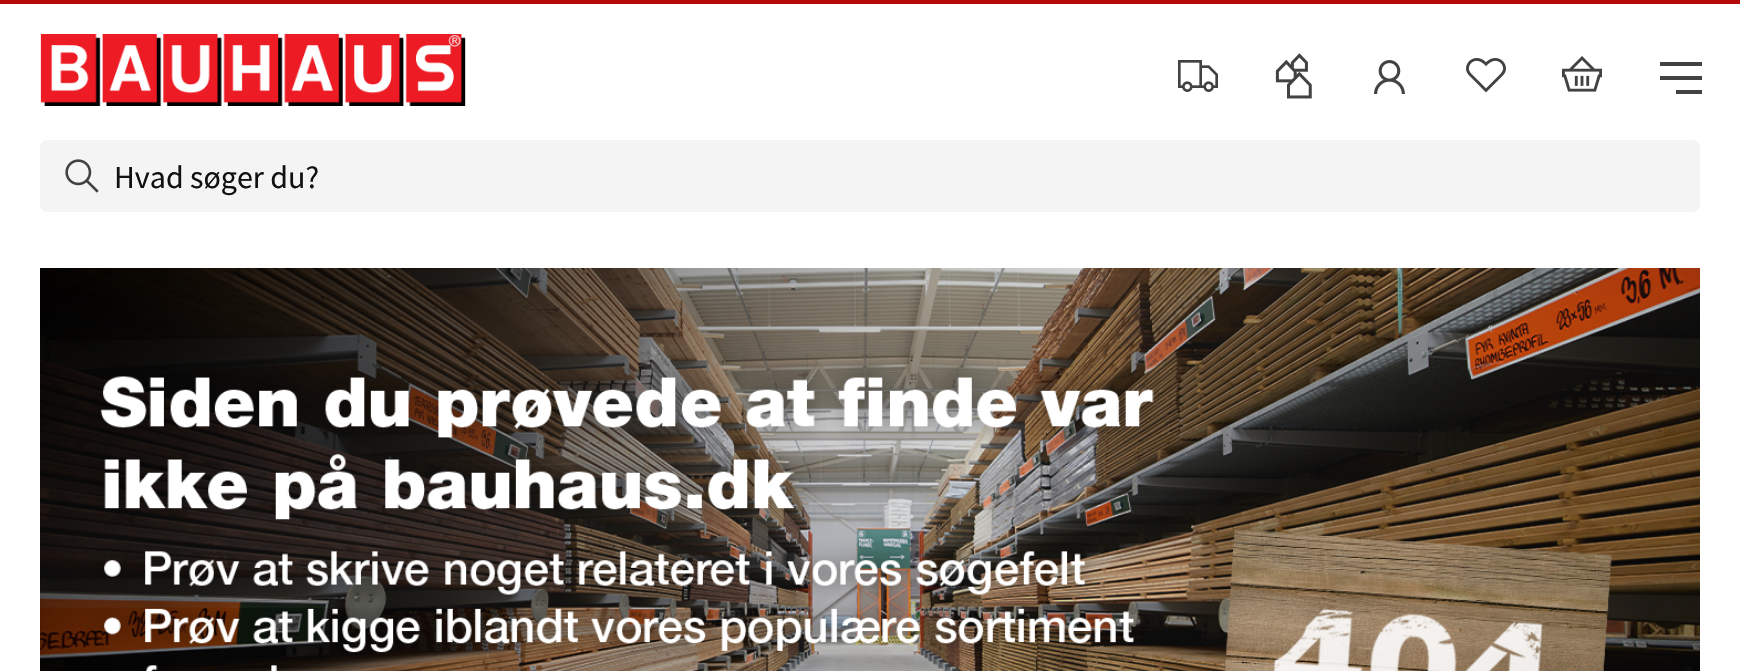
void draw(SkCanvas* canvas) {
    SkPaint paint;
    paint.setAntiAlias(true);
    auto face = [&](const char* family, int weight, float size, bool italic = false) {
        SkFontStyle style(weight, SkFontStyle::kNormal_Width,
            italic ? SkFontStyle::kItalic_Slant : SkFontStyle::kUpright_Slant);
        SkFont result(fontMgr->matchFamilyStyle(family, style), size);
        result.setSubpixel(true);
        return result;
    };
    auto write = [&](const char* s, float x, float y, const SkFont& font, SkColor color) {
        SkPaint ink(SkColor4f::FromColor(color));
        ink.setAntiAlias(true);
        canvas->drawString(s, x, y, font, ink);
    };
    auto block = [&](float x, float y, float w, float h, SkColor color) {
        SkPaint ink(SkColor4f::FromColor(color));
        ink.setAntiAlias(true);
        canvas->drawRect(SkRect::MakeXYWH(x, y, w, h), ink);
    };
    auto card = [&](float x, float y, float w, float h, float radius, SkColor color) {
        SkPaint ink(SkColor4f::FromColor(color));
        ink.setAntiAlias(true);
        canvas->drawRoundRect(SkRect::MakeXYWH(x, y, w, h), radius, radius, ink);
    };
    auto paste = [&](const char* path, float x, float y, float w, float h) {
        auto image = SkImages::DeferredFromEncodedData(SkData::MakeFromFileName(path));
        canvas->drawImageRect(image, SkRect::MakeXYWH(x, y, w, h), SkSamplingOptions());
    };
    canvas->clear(SK_ColorWHITE);
    block(0, 0, 1740, 4, SkColorSetRGB(181, 8, 8));
    paste("pic1.png", 40, 34, 426, 72);
    paste("pic2.png", 1178, 60, 40, 32);
    paste("pic3.png", 1275, 53, 37, 46);
    paste("pic4.png", 1374, 60, 31, 34);
    paste("pic5.png", 1466, 58, 40, 35);
    paste("pic6.png", 1562, 56, 40, 36);
    block(1660, 62, 42, 4, SkColorSetRGB(66, 66, 66));
    block(1660, 76, 42, 4, SkColorSetRGB(66, 66, 66));
    block(1676, 90, 26, 4, SkColorSetRGB(66, 66, 66));
    card(40, 140, 1660, 72, 8, SkColorSetRGB(244, 244, 244));
    paste("pic7.png", 65, 159, 34, 34);
    auto kFont1 = face("Source Sans Pro", 400, 32);
    write("Hvad søger du?", 114, 188, kFont1, SkColorSetRGB(17, 17, 17));
    paste("pic8.png", 40, 268, 1660, 403);
}
